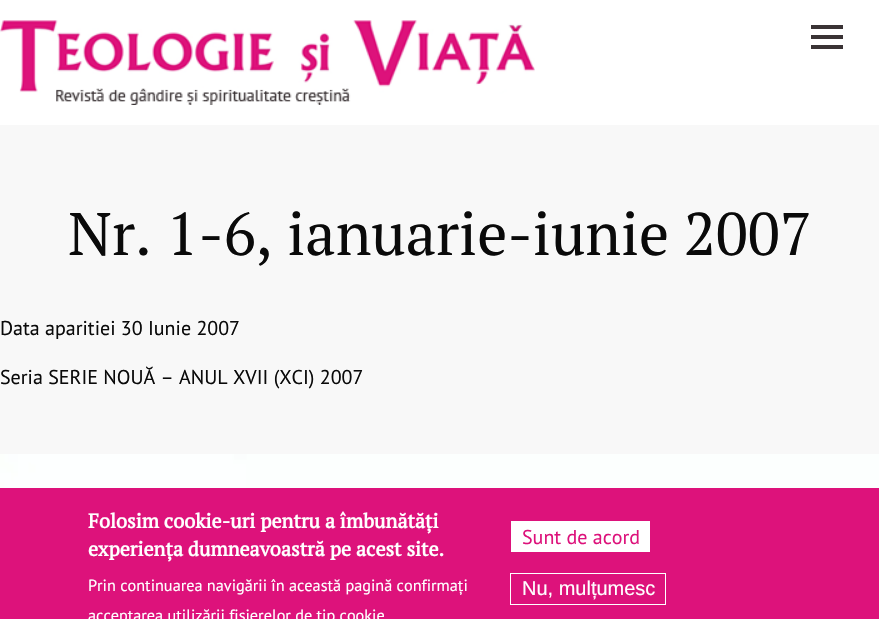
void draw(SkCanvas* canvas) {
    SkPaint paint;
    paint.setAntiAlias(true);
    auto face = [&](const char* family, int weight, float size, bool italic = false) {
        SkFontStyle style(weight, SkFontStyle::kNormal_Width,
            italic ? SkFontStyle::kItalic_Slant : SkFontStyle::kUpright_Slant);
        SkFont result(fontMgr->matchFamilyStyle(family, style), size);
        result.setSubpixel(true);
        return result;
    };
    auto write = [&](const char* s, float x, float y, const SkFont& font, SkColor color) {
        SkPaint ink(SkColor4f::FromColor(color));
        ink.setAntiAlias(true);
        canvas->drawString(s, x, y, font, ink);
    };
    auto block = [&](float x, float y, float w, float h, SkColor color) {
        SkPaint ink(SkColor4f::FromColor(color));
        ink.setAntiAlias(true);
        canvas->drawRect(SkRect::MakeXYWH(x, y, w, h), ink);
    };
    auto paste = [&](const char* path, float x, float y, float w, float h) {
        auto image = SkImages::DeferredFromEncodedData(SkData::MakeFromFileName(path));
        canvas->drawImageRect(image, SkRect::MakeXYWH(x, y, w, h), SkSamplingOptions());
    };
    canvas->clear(SkColorSetRGB(248, 248, 248));
    block(0, 0, 879, 125, SK_ColorWHITE);
    paste("pic1.png", 0, 20, 535, 85);
    block(811, 45, 32, 4, SkColorSetRGB(58, 51, 53));
    block(811, 35, 32, 4, SkColorSetRGB(58, 51, 53));
    block(811, 25, 32, 4, SkColorSetRGB(58, 51, 53));
    auto kFont1 = face("PT Serif", 400, 60);
    write("Nr. 1-6, ianuarie-iunie 2007", 68, 255, kFont1, SkColorSetRGB(10, 10, 10));
    auto kFont2 = face("PT Sans", 400, 20);
    write("Data aparitiei 30 Iunie 2007", 0, 335, kFont2, SkColorSetRGB(10, 10, 10));
    write("Seria SERIE NOUĂ – ANUL XVII (XCI) 2007", 0, 384, kFont2, SkColorSetRGB(10, 10, 10));
    paste("pic2.png", 0, 454, 879, 34);
    block(0, 488, 879, 131, SkColorSetRGB(221, 18, 123));
    auto kFont3 = face("PT Serif", 700, 20);
    write("Folosim cookie-uri pentru a îmbunătăți", 88, 528, kFont3, SK_ColorWHITE);
    write("experiența dumneavoastră pe acest site.", 88, 556, kFont3, SK_ColorWHITE);
    auto kFont4 = face("PT Sans", 400, 16.25f);
    write("Prin continuarea navigării în această pagină confirmați", 88, 591, kFont4, SK_ColorWHITE);
    write("acceptarea utilizării fișierelor de tip cookie", 88, 621, kFont4, SK_ColorWHITE);
    block(511, 521, 139, 31, SK_ColorWHITE);
    write("Sunt de acord", 522, 544, kFont2, SkColorSetRGB(221, 18, 123));
    paint.setStyle(SkPaint::kStroke_Style);
    paint.setStrokeWidth(1);
    paint.setColor(SK_ColorWHITE);
    canvas->drawRect(SkRect::MakeXYWH(510.5f, 573.5f, 155, 31), paint);
    auto kFont5 = face("Liberation Sans", 400, 20);
    write("Nu, mulțumesc", 522, 595, kFont5, SK_ColorWHITE);
}
